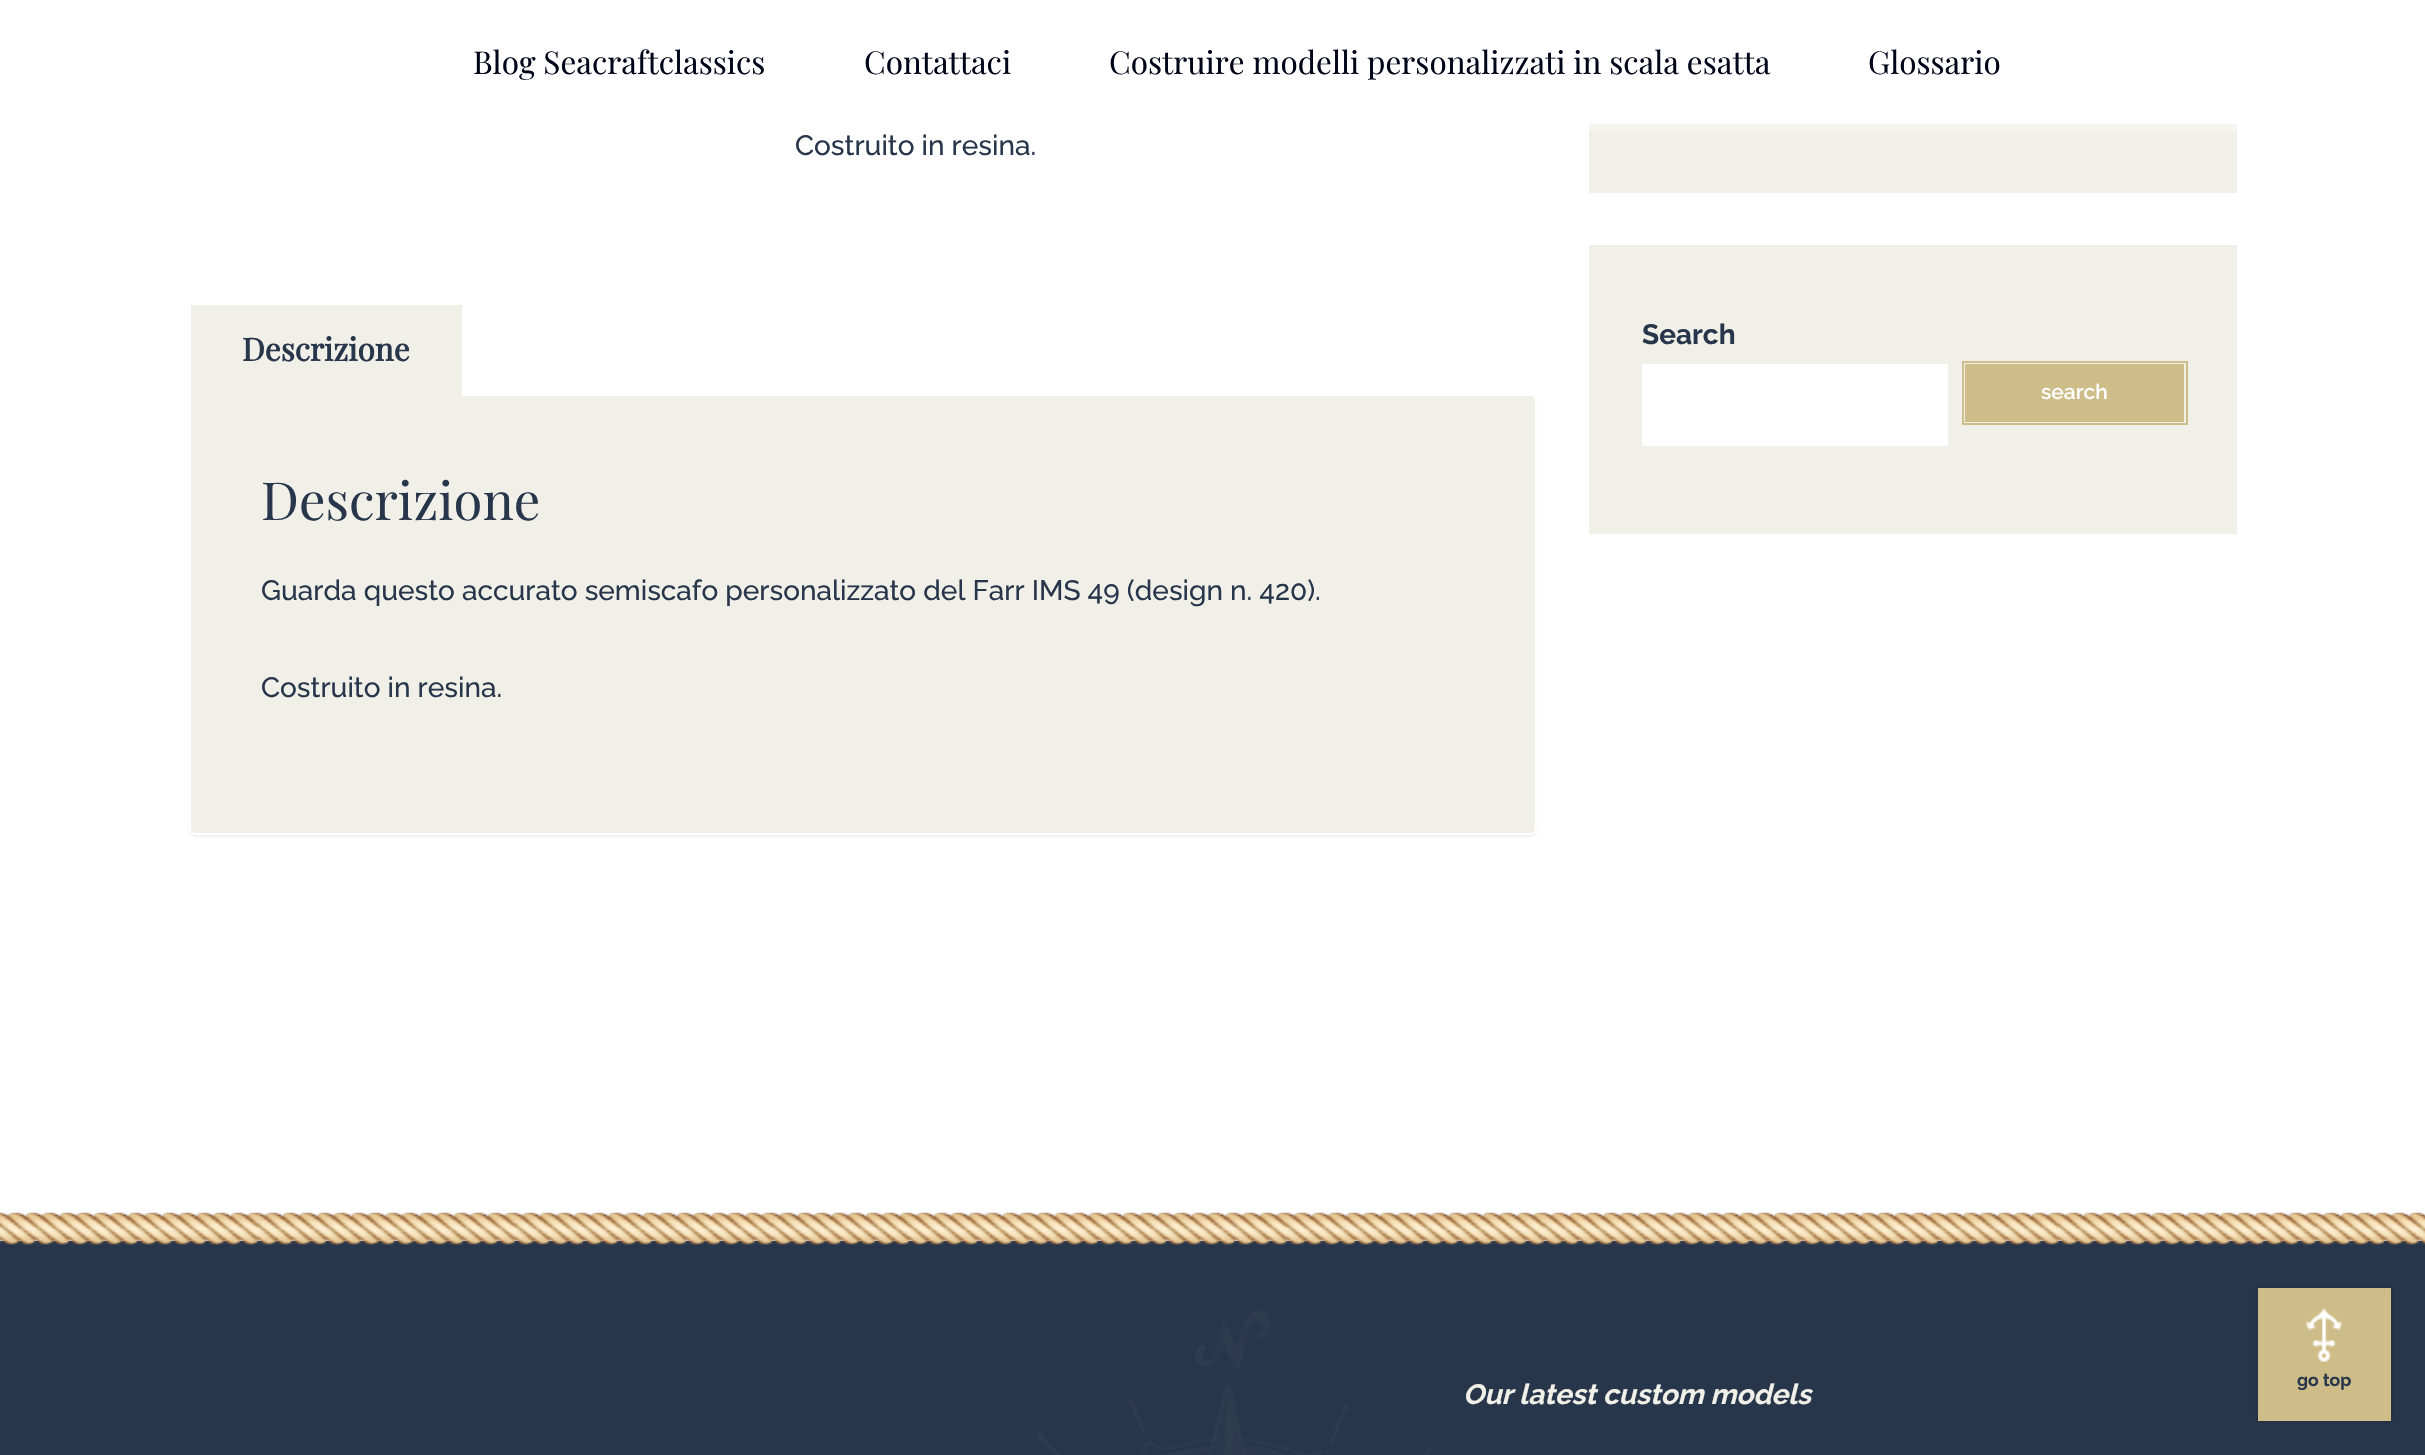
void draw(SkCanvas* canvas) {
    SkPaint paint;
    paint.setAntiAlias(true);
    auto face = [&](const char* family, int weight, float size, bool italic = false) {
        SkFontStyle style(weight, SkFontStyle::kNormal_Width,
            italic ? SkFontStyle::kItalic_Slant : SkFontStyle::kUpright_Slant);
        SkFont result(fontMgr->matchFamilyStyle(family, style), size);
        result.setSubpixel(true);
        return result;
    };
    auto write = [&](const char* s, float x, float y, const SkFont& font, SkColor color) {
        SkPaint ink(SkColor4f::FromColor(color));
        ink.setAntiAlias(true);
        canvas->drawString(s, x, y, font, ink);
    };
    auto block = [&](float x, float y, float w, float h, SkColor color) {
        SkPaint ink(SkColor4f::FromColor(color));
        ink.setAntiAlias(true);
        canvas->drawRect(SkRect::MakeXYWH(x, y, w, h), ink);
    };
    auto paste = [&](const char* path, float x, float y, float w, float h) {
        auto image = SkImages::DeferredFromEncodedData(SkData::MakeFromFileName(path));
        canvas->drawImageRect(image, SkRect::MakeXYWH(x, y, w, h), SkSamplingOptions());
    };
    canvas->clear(SK_ColorWHITE);
    auto kFont1 = face("Playfair Display", 400, 31.5f);
    write("Blog Seacraftclassics", 473, 74, kFont1, SkColorSetRGB(0, 4, 25));
    write("Contattaci", 864, 74, kFont1, SkColorSetRGB(0, 4, 25));
    write("Costruire modelli personalizzati in scala esatta", 1109, 74, kFont1, SkColorSetRGB(0, 4, 25));
    write("Glossario", 1868, 74, kFont1, SkColorSetRGB(0, 4, 25));
    auto kFont2 = face("Raleway", 500, 28);
    write("Costruito in resina.", 795, 155, kFont2, SkColorSetRGB(40, 54, 75));
    canvas->save();
    canvas->clipPath(SkPathBuilder(SkPathFillType::kEvenOdd).moveTo(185, 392).lineTo(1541, 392).lineTo(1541, 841).lineTo(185, 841).close().moveTo(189, 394).lineTo(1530, 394).cubicTo(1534, 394, 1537, 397, 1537, 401).lineTo(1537, 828).cubicTo(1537, 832, 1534, 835, 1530, 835).lineTo(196, 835).cubicTo(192, 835, 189, 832, 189, 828).close().detach(), true);
    paint.setColor(SkColorSetARGB(13, 0, 0, 0));
    paint.setMaskFilter(SkMaskFilter::MakeBlur(kNormal_SkBlurStyle, 1));
    canvas->drawRoundRect(SkRect::MakeXYWH(189, 396, 1348, 441), 7, 7, paint);
    paint.setMaskFilter(nullptr);
    canvas->restore();
    block(191, 305, 271, 91, SkColorSetRGB(241, 240, 232));
    auto kFont3 = face("Playfair Display", 700, 31.5f);
    write("Descrizione", 242, 361, kFont3, SkColorSetRGB(40, 54, 75));
    paint.setColor(SkColorSetRGB(241, 240, 232));
    canvas->drawPath(SkPathBuilder().moveTo(191, 396).lineTo(1530, 396).cubicTo(1533, 396, 1535, 398, 1535, 401).lineTo(1535, 828).cubicTo(1535, 831, 1533, 833, 1530, 833).lineTo(196, 833).cubicTo(193, 833, 191, 831, 191, 828).close().detach(), paint);
    auto kFont4 = face("Playfair Display", 400, 52.5f);
    write("Descrizione", 261, 520, kFont4, SkColorSetRGB(40, 54, 75));
    write("Guarda questo accurato semiscafo personalizzato del Farr IMS 49 (design n. 420).", 261, 600, kFont2, SkColorSetRGB(40, 54, 75));
    write("Costruito in resina.", 261, 697, kFont2, SkColorSetRGB(40, 54, 75));
    block(1589, 131, 648, 62, SkColorSetRGB(241, 240, 232));
    block(1589, 124, 648, 7, SkColorSetRGB(245, 244, 238));
    block(1589, 245, 648, 289, SkColorSetRGB(241, 240, 232));
    auto kFont5 = face("Raleway", 700, 28);
    write("Search", 1642, 344, kFont5, SkColorSetRGB(40, 54, 75));
    block(1642, 364, 306, 82, SK_ColorWHITE);
    block(1965, 364, 219, 58, SkColorSetRGB(206, 189, 136));
    paint.setStyle(SkPaint::kStroke_Style);
    paint.setStrokeWidth(2);
    paint.setColor(SkColorSetRGB(206, 189, 136));
    canvas->drawRect(SkRect::MakeXYWH(1963, 362, 224, 62), paint);
    auto kFont6 = face("Raleway", 600, 21);
    write("search", 2041, 399, kFont6, SK_ColorWHITE);
    block(0, 1241, 2425, 214, SkColorSetRGB(40, 54, 75));
    paste("pic1.png", 0, 1212, 2425, 33);
    paste("pic2.png", 1037, 1311, 397, 144);
    auto kFont7 = face("Raleway", 700, 28, true);
    write("Our latest custom models", 1463, 1404, kFont7, SkColorSetRGB(241, 240, 232));
    paint.setStyle(SkPaint::kFill_Style);
    paint.setColor(SkColorSetARGB(51, 0, 0, 0));
    paint.setMaskFilter(SkMaskFilter::MakeBlur(kNormal_SkBlurStyle, 2.5f));
    canvas->drawRect(SkRect::MakeXYWH(2258, 1288, 133, 133), paint);
    paint.setMaskFilter(nullptr);
    block(2258, 1288, 133, 133, SkColorSetRGB(206, 189, 136));
    paste("pic3.png", 2306, 1308, 36, 54);
    auto kFont8 = face("Raleway", 700, 17.5f);
    write("go top", 2297, 1386, kFont8, SkColorSetRGB(40, 54, 75));
}
